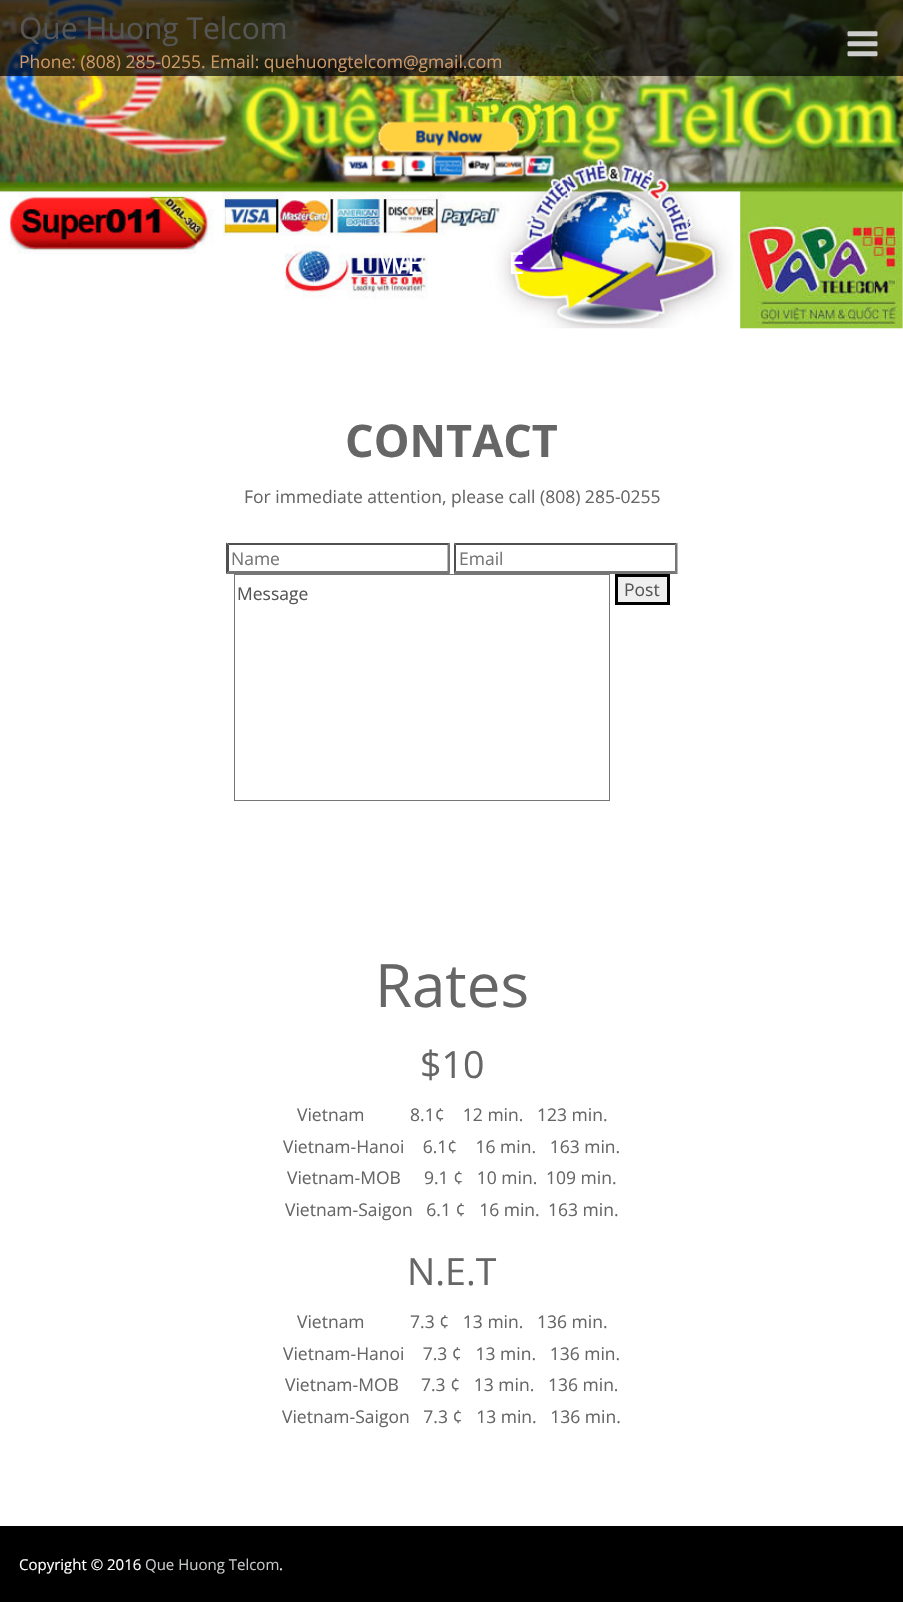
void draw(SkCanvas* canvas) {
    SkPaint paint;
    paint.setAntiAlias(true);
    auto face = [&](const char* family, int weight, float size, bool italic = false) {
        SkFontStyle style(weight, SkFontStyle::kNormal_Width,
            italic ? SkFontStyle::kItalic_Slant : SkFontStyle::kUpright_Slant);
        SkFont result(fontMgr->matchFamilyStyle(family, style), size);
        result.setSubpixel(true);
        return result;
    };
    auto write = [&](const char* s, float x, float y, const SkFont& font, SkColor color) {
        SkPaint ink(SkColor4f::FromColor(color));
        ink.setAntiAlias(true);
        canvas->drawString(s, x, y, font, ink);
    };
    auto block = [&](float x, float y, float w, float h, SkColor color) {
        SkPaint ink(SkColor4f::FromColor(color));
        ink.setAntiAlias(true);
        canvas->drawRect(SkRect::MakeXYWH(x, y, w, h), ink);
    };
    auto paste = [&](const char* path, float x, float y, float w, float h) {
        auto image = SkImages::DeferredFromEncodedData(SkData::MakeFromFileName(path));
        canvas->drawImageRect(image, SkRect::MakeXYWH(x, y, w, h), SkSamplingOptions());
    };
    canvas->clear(SK_ColorWHITE);
    paste("pic2.png", 0, 0, 903, 329);
    block(0, 0, 903, 76, SkColorSetARGB(179, 0, 0, 0));
    auto kFont1 = face("Open Sans", 400, 30);
    write("Que Huong Telcom", 19, 39, kFont1, SkColorSetRGB(85, 85, 85));
    auto kFont2 = face("Open Sans", 400, 17.5f);
    write("Phone: (808) 285-0255. Email: quehuongtelcom@gmail.com", 19, 68, kFont2, SkColorSetRGB(204, 153, 102));
    paste("pic1.png", 847, 31, 31, 26);
    paste("pic3.png", 343, 121, 212, 56);
    write("WE", 379, 274, kFont1, SK_ColorWHITE);
    write("E", 508, 274, kFont1, SK_ColorWHITE);
    auto kFont3 = face("Open Sans", 700, 45);
    write("CONTACT", 345, 457, kFont3, SkColorSetRGB(102, 102, 102));
    write("For immediate attention, please call (808) 285-0255", 244, 503, kFont2, SkColorSetRGB(102, 102, 102));
    canvas->save();
    canvas->clipRect(SkRect::MakeXYWH(140, 543, 625, 258));
    paint.setColor(SkColorSetRGB(79, 79, 79));
    canvas->drawPath(SkPathBuilder().moveTo(226, 542).lineTo(450, 542).lineTo(448, 545).lineTo(229, 545).close().detach(), paint);
    canvas->restore();
    paint.setColor(SkColorSetRGB(118, 118, 118));
    canvas->drawPath(SkPathBuilder().moveTo(450, 542.5f).lineTo(450, 574).lineTo(447.5f, 571).lineTo(447.5f, 545).close().detach(), paint);
    canvas->drawPath(SkPathBuilder().moveTo(450, 574).lineTo(226, 574).lineTo(229, 571).lineTo(448, 571).close().detach(), paint);
    paint.setColor(SkColorSetRGB(79, 79, 79));
    canvas->drawPath(SkPathBuilder().moveTo(226, 574).lineTo(226, 542.5f).lineTo(229, 545).lineTo(229, 571).close().detach(), paint);
    write("Name", 231, 565, kFont2, SkColorSetRGB(117, 117, 117));
    canvas->save();
    canvas->clipRect(SkRect::MakeXYWH(140, 543, 625, 258));
    canvas->drawPath(SkPathBuilder().moveTo(454, 542).lineTo(678, 542).lineTo(675, 545).lineTo(456, 545).close().detach(), paint);
    canvas->restore();
    paint.setColor(SkColorSetRGB(118, 118, 118));
    canvas->drawPath(SkPathBuilder().moveTo(677.5f, 542.5f).lineTo(677.5f, 574).lineTo(675, 571).lineTo(675, 545).close().detach(), paint);
    canvas->drawPath(SkPathBuilder().moveTo(678, 574).lineTo(454, 574).lineTo(456, 571).lineTo(675, 571).close().detach(), paint);
    paint.setColor(SkColorSetRGB(79, 79, 79));
    canvas->drawPath(SkPathBuilder().moveTo(454, 574).lineTo(454, 542.5f).lineTo(456, 545).lineTo(456, 571).close().detach(), paint);
    write("Email", 459, 565, kFont2, SkColorSetRGB(117, 117, 117));
    paint.setStyle(SkPaint::kStroke_Style);
    paint.setStrokeWidth(1);
    paint.setColor(SkColorSetRGB(118, 118, 118));
    canvas->drawRect(SkRect::MakeXYWH(234.5f, 574.5f, 375, 226), paint);
    write("Message", 237, 600, kFont2, SkColorSetRGB(85, 85, 85));
    paint.setStyle(SkPaint::kFill_Style);
    paint.setColor(SkColorSetRGB(239, 239, 239));
    canvas->drawRect(SkRect::MakeXYWH(616.5f, 575.5f, 52, 28), paint);
    paint.setStyle(SkPaint::kStroke_Style);
    paint.setStrokeWidth(3);
    paint.setColor(SK_ColorBLACK);
    canvas->drawRect(SkRect::MakeXYWH(616.5f, 575.5f, 52, 28), paint);
    write("Post", 624, 596, kFont2, SkColorSetRGB(85, 85, 85));
    auto kFont4 = face("Open Sans", 400, 60);
    write("Rates", 375, 1007, kFont4, SkColorSetRGB(102, 102, 102));
    auto kFont5 = face("Open Sans", 400, 37.5f);
    write("$10", 420, 1078, kFont5, SkColorSetRGB(102, 102, 102));
    write("Vietnam          8.1¢    12 min.   123 min.", 297, 1121, kFont2, SkColorSetRGB(102, 102, 102));
    write("Vietnam-Hanoi    6.1¢    16 min.   163 min.", 283, 1153, kFont2, SkColorSetRGB(102, 102, 102));
    write("Vietnam-MOB", 287, 1184, kFont2, SkColorSetRGB(102, 102, 102));
    write("9.1 ¢   10 min.", 424, 1184, kFont2, SkColorSetRGB(102, 102, 102));
    write("109 min.", 546, 1184, kFont2, SkColorSetRGB(102, 102, 102));
    write("Vietnam-Saigon   6.1 ¢   16 min.", 285, 1216, kFont2, SkColorSetRGB(102, 102, 102));
    write("163 min.", 548, 1216, kFont2, SkColorSetRGB(102, 102, 102));
    write("N.E.T", 407, 1285, kFont5, SkColorSetRGB(102, 102, 102));
    write("Vietnam          7.3 ¢   13 min.   136 min.", 297, 1328, kFont2, SkColorSetRGB(102, 102, 102));
    write("Vietnam-Hanoi    7.3 ¢   13 min.   136 min.", 283, 1360, kFont2, SkColorSetRGB(102, 102, 102));
    write("Vietnam-MOB", 285, 1391, kFont2, SkColorSetRGB(102, 102, 102));
    write("7.3 ¢   13 min.   136 min.", 421, 1391, kFont2, SkColorSetRGB(102, 102, 102));
    write("Vietnam-Saigon   7.3 ¢   13 min.   136 min.", 282, 1423, kFont2, SkColorSetRGB(102, 102, 102));
    block(0, 1526, 903, 76, SK_ColorBLACK);
    auto kFont6 = face("Open Sans", 400, 15);
    write("Copyright © 2016", 19, 1570, kFont6, SK_ColorWHITE);
    write("Que Huong Telcom", 145, 1570, kFont6, SkColorSetRGB(197, 199, 201));
    write(".", 279, 1570, kFont6, SK_ColorWHITE);
}
